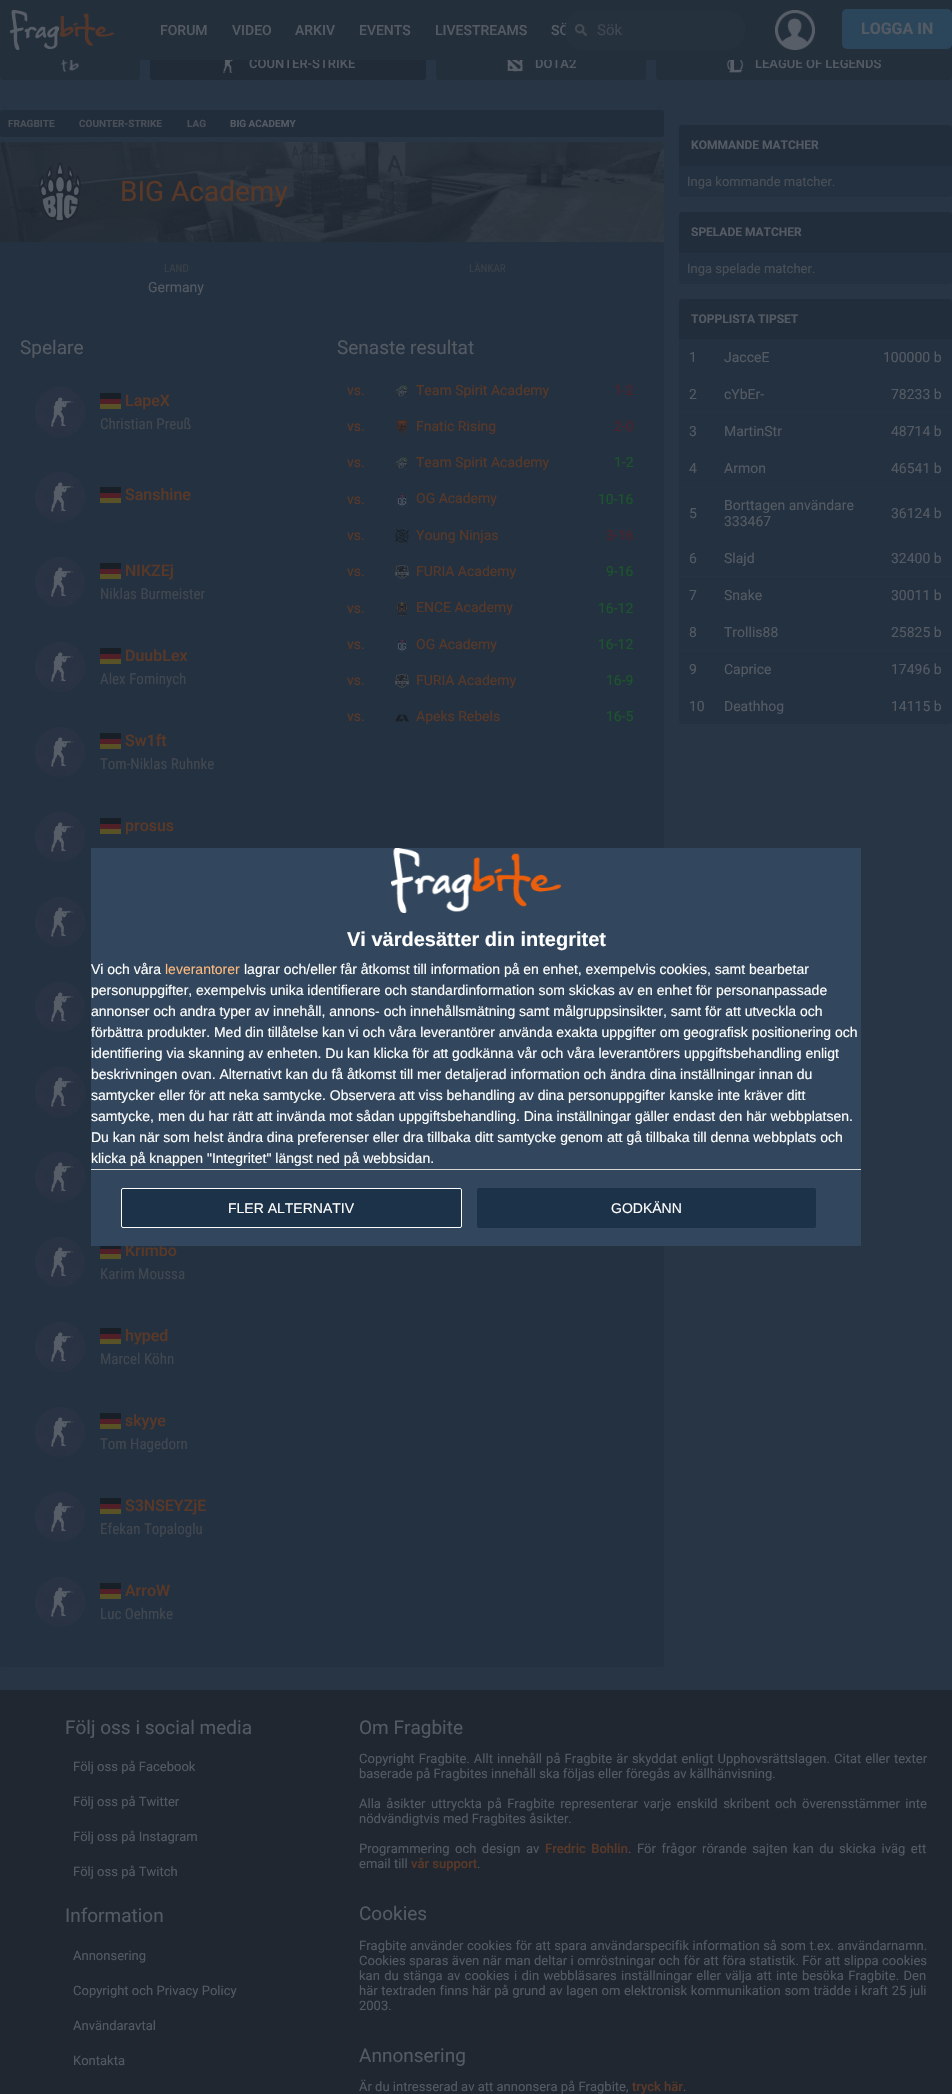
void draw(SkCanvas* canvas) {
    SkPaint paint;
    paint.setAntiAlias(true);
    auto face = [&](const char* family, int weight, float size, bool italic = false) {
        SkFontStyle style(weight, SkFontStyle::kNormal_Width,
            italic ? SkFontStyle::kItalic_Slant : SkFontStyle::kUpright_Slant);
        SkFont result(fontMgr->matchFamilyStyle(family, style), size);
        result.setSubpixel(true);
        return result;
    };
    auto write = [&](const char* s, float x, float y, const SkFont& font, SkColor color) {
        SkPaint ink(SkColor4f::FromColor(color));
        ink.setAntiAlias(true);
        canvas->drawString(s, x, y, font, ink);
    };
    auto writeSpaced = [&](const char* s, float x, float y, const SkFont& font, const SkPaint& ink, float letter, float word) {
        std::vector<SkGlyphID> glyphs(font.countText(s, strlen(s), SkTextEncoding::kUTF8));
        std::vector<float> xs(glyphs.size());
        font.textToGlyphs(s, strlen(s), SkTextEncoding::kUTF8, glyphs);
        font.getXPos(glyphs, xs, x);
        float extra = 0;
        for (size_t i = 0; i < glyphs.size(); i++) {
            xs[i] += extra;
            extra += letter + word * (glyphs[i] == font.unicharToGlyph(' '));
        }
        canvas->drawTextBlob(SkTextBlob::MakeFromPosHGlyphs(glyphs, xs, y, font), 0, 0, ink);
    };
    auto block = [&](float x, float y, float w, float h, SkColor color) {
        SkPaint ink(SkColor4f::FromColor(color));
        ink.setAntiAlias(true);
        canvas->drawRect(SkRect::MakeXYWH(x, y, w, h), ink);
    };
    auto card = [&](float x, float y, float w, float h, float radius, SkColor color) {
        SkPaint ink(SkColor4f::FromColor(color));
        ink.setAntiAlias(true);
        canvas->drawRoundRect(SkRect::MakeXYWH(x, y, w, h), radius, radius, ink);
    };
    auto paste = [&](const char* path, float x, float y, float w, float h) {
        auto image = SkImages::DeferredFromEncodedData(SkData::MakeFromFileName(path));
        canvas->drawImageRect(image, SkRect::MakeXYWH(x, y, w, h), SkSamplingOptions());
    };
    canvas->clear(SkColorSetRGB(40, 53, 68));
    card(0, 46, 140, 34, 3, SkColorSetRGB(36, 47, 60));
    card(150, 46, 276, 34, 3, SkColorSetRGB(33, 43, 55));
    auto kFont1 = face("Roboto", 500, 13);
    write("COUNTER-STRIKE", 249, 68, kFont1, SkColorSetRGB(84, 90, 99));
    card(436, 46, 210, 34, 3, SkColorSetRGB(36, 47, 60));
    write("DOTA2", 535, 68, kFont1, SkColorSetRGB(84, 90, 99));
    card(656, 46, 296, 34, 3, SkColorSetRGB(36, 47, 60));
    write("LEAGUE OF LEGENDS", 755, 68, kFont1, SkColorSetRGB(84, 90, 99));
    block(0, 0, 952, 60, SkColorSetRGB(36, 47, 60));
    paste("pic1.png", 10, 10, 104, 40);
    auto kFont2 = face("Roboto", 500, 14);
    write("FORUM", 160, 35, kFont2, SkColorSetRGB(84, 90, 99));
    write("VIDEO", 232, 35, kFont2, SkColorSetRGB(84, 90, 99));
    write("ARKIV", 295, 35, kFont2, SkColorSetRGB(84, 90, 99));
    write("EVENTS", 359, 35, kFont2, SkColorSetRGB(84, 90, 99));
    write("LIVESTREAMS", 435, 35, kFont2, SkColorSetRGB(84, 90, 99));
    write("SÖ", 551, 35, kFont2, SkColorSetRGB(84, 90, 99));
    card(565, 10, 180, 40, 20, SkColorSetRGB(38, 49, 62));
    paste("pic2.png", 575, 24, 12, 12);
    auto kFont3 = face("Roboto", 400, 15);
    write("Sök", 597, 35, kFont3, SkColorSetRGB(65, 71, 80));
    paste("pic3.png", 775, 10, 40, 40);
    card(842, 9, 110, 40, 5, SkColorSetRGB(43, 70, 90));
    auto kFont4 = face("Roboto", 700, 16);
    write("LOGGA IN", 861, 34, kFont4, SkColorSetRGB(84, 90, 99));
    paste("pic4.png", 61, 60, 18, 12);
    paste("pic5.png", 223, 60, 10, 13);
    paste("pic6.png", 507, 60, 16, 12);
    paste("pic7.png", 727, 60, 17, 13);
    card(0, 110, 664, 27, 2, SkColorSetRGB(34, 45, 59));
    auto kFont5 = face("Roboto", 700, 10);
    write("FRAGBITE", 8, 127, kFont5, SkColorSetRGB(73, 79, 87));
    write("COUNTER-STRIKE", 79, 127, kFont5, SkColorSetRGB(73, 79, 87));
    write("LAG", 187, 127, kFont5, SkColorSetRGB(73, 79, 87));
    write("BIG ACADEMY", 230, 127, kFont5, SkColorSetRGB(84, 90, 99));
    card(0, 142, 664, 1525, 2, SkColorSetRGB(36, 49, 64));
    paste("pic8.png", 0, 142, 664, 100);
    {
        const SkColor colors[] = {SkColorSetARGB(64, 29, 35, 43), SkColorSetARGB(64, 25, 31, 39)};
        const float stops[] = {0, 1};
        const SkPoint ends[] = {{332, 142}, {332, 242}};
        paint.setShader(SkGradientShader::MakeLinear(ends, colors, stops, 2, SkTileMode::kClamp));
        paint.setAlpha(255);
    }
    canvas->drawPath(SkPathBuilder().moveTo(2, 142).lineTo(662, 142).cubicTo(663, 142, 664, 143, 664, 144).lineTo(664, 242).lineTo(0, 242).lineTo(0, 144).cubicTo(0, 143, 1, 142, 2, 142).close().detach(), paint);
    paste("pic9.png", 39, 162, 42, 60);
    auto kFont6 = face("Roboto", 400, 28);
    write("BIG Academy", 120, 201, kFont6, SkColorSetRGB(89, 56, 39));
    auto kFont7 = face("Roboto Condensed", 400, 11);
    write("LAND", 164, 272, kFont7, SkColorSetRGB(57, 63, 71));
    auto kFont8 = face("Roboto", 400, 14);
    write("Germany", 148, 292, kFont8, SkColorSetRGB(84, 90, 99));
    write("LÄNKAR", 469, 272, kFont7, SkColorSetRGB(57, 63, 71));
    auto kFont9 = face("Roboto", 400, 19);
    write("Spelare", 20, 354, kFont9, SkColorSetRGB(84, 90, 99));
    paste("pic10.png", 35, 387, 50, 50);
    block(100, 393, 21, 6, SkColorSetRGB(25, 31, 39));
    auto kFont10 = face("Roboto", 500, 16);
    write("LapeX", 125, 406, kFont10, SkColorSetRGB(89, 56, 39));
    block(100, 399, 21, 5, SkColorSetRGB(80, 31, 39));
    block(100, 404, 21, 5, SkColorSetRGB(89, 82, 39));
    auto kFont11 = face("Roboto Condensed", 400, 15);
    write("Christian Preuß", 100, 429, kFont11, SkColorSetRGB(65, 71, 80));
    paste("pic11.png", 35, 472, 50, 50);
    block(100, 487, 21, 6, SkColorSetRGB(25, 31, 39));
    write("Sanshine", 125, 500, kFont10, SkColorSetRGB(89, 56, 39));
    block(100, 493, 21, 5, SkColorSetRGB(80, 31, 39));
    block(100, 498, 21, 5, SkColorSetRGB(89, 82, 39));
    paste("pic10.png", 35, 557, 50, 50);
    block(100, 563, 21, 6, SkColorSetRGB(25, 31, 39));
    write("NIKZEj", 125, 576, kFont10, SkColorSetRGB(89, 56, 39));
    block(100, 569, 21, 5, SkColorSetRGB(80, 31, 39));
    block(100, 574, 21, 5, SkColorSetRGB(89, 82, 39));
    write("Niklas Burmeister", 100, 599, kFont11, SkColorSetRGB(65, 71, 80));
    paste("pic10.png", 35, 642, 50, 50);
    block(100, 648, 21, 6, SkColorSetRGB(25, 31, 39));
    write("DuubLex", 125, 661, kFont10, SkColorSetRGB(89, 56, 39));
    block(100, 654, 21, 5, SkColorSetRGB(80, 31, 39));
    block(100, 659, 21, 5, SkColorSetRGB(89, 82, 39));
    write("Alex Fominych", 100, 684, kFont11, SkColorSetRGB(65, 71, 80));
    paste("pic12.png", 35, 727, 50, 50);
    block(100, 733, 21, 6, SkColorSetRGB(25, 31, 39));
    write("Sw1ft", 125, 746, kFont10, SkColorSetRGB(89, 56, 39));
    block(100, 739, 21, 5, SkColorSetRGB(80, 31, 39));
    block(100, 744, 21, 5, SkColorSetRGB(89, 82, 39));
    write("Tom-Niklas Ruhnke", 100, 769, kFont11, SkColorSetRGB(65, 71, 80));
    paste("pic10.png", 35, 812, 50, 50);
    block(100, 818, 21, 6, SkColorSetRGB(25, 31, 39));
    block(100, 824, 21, 5, SkColorSetRGB(80, 31, 39));
    write("prosus", 125, 831, kFont10, SkColorSetRGB(89, 56, 39));
    block(100, 829, 21, 5, SkColorSetRGB(89, 82, 39));
    paste("pic10.png", 35, 897, 50, 50);
    paste("pic13.png", 35, 982, 50, 50);
    paste("pic10.png", 35, 1067, 50, 50);
    paste("pic10.png", 35, 1152, 50, 50);
    paste("pic14.png", 35, 1237, 50, 50);
    block(100, 1246, 21, 3, SkColorSetRGB(25, 31, 39));
    write("Krimbo", 125, 1256, kFont10, SkColorSetRGB(89, 56, 39));
    block(100, 1249, 21, 5, SkColorSetRGB(80, 31, 39));
    block(100, 1254, 21, 5, SkColorSetRGB(89, 82, 39));
    write("Karim Moussa", 100, 1279, kFont11, SkColorSetRGB(65, 71, 80));
    paste("pic10.png", 35, 1322, 50, 50);
    block(100, 1328, 21, 6, SkColorSetRGB(25, 31, 39));
    write("hyped", 125, 1341, kFont10, SkColorSetRGB(89, 56, 39));
    block(100, 1334, 21, 5, SkColorSetRGB(80, 31, 39));
    block(100, 1339, 21, 5, SkColorSetRGB(89, 82, 39));
    write("Marcel Köhn", 100, 1364, kFont11, SkColorSetRGB(65, 71, 80));
    paste("pic10.png", 35, 1407, 50, 50);
    block(100, 1413, 21, 6, SkColorSetRGB(25, 31, 39));
    write("skyye", 125, 1426, kFont10, SkColorSetRGB(89, 56, 39));
    block(100, 1419, 21, 5, SkColorSetRGB(80, 31, 39));
    block(100, 1424, 21, 5, SkColorSetRGB(89, 82, 39));
    write("Tom Hagedorn", 100, 1449, kFont11, SkColorSetRGB(65, 71, 80));
    paste("pic15.png", 35, 1492, 50, 50);
    block(100, 1498, 21, 6, SkColorSetRGB(25, 31, 39));
    write("S3NSEYZjE", 125, 1511, kFont10, SkColorSetRGB(89, 56, 39));
    block(100, 1504, 21, 5, SkColorSetRGB(80, 31, 39));
    block(100, 1509, 21, 5, SkColorSetRGB(89, 82, 39));
    write("Efekan Topaloglu", 100, 1534, kFont11, SkColorSetRGB(65, 71, 80));
    paste("pic10.png", 35, 1577, 50, 50);
    block(100, 1583, 21, 6, SkColorSetRGB(25, 31, 39));
    write("ArroW", 125, 1596, kFont10, SkColorSetRGB(89, 56, 39));
    block(100, 1589, 21, 5, SkColorSetRGB(80, 31, 39));
    block(100, 1594, 21, 5, SkColorSetRGB(89, 82, 39));
    write("Luc Oehmke", 100, 1619, kFont11, SkColorSetRGB(65, 71, 80));
    write("Senaste resultat", 337, 354, kFont9, SkColorSetRGB(84, 90, 99));
    write("vs.", 347, 395, kFont8, SkColorSetRGB(89, 56, 39));
    paste("pic16.png", 396, 384, 12, 14);
    write("Team Spirit Academy", 416, 395, kFont8, SkColorSetRGB(89, 56, 39));
    write("1-2", 614, 395, kFont8, SkColorSetRGB(80, 33, 42));
    write("vs.", 347, 431, kFont8, SkColorSetRGB(89, 56, 39));
    paste("pic17.png", 395, 420, 14, 14);
    write("Fnatic Rising", 416, 431, kFont8, SkColorSetRGB(89, 56, 39));
    write("2-0", 614, 431, kFont8, SkColorSetRGB(80, 33, 42));
    write("vs.", 347, 467, kFont8, SkColorSetRGB(89, 56, 39));
    paste("pic16.png", 396, 456, 12, 14);
    write("Team Spirit Academy", 416, 467, kFont8, SkColorSetRGB(89, 56, 39));
    write("1-2", 614, 467, kFont8, SkColorSetRGB(26, 86, 42));
    write("vs.", 347, 504, kFont8, SkColorSetRGB(89, 56, 39));
    paste("pic18.png", 397, 493, 10, 14);
    write("OG Academy", 416, 503, kFont8, SkColorSetRGB(89, 56, 39));
    write("10-16", 598, 504, kFont8, SkColorSetRGB(26, 86, 42));
    write("vs.", 347, 540, kFont8, SkColorSetRGB(89, 56, 39));
    paste("pic19.png", 395, 529, 14, 14);
    write("Young Ninjas", 416, 540, kFont8, SkColorSetRGB(89, 56, 39));
    write("3-16", 606, 540, kFont8, SkColorSetRGB(80, 33, 42));
    write("vs.", 347, 576, kFont8, SkColorSetRGB(89, 56, 39));
    paste("pic20.png", 395, 565, 14, 14);
    write("FURIA Academy", 416, 576, kFont8, SkColorSetRGB(89, 56, 39));
    write("9-16", 606, 576, kFont8, SkColorSetRGB(26, 86, 42));
    write("vs.", 347, 613, kFont8, SkColorSetRGB(89, 56, 39));
    paste("pic21.png", 396, 602, 12, 14);
    write("ENCE Academy", 416, 612, kFont8, SkColorSetRGB(89, 56, 39));
    write("16-12", 598, 613, kFont8, SkColorSetRGB(26, 86, 42));
    write("vs.", 347, 649, kFont8, SkColorSetRGB(89, 56, 39));
    paste("pic18.png", 397, 638, 10, 14);
    write("OG Academy", 416, 649, kFont8, SkColorSetRGB(89, 56, 39));
    write("16-12", 598, 649, kFont8, SkColorSetRGB(26, 86, 42));
    write("vs.", 347, 685, kFont8, SkColorSetRGB(89, 56, 39));
    paste("pic22.png", 395, 674, 14, 14);
    write("FURIA Academy", 416, 685, kFont8, SkColorSetRGB(89, 56, 39));
    write("16-9", 606, 685, kFont8, SkColorSetRGB(26, 86, 42));
    write("vs.", 347, 721, kFont8, SkColorSetRGB(89, 56, 39));
    paste("pic23.png", 395, 714, 14, 8);
    write("Apeks Rebels", 416, 721, kFont8, SkColorSetRGB(89, 56, 39));
    write("16-5", 606, 721, kFont8, SkColorSetRGB(26, 86, 42));
    card(679, 125, 273, 72, 3, SkColorSetRGB(36, 49, 64));
    paint.setShader(nullptr);
    paint.setColor(SkColorSetRGB(34, 45, 59));
    canvas->drawPath(SkPathBuilder().moveTo(682, 125).lineTo(949, 125).cubicTo(950.5f, 125, 952, 126.5f, 952, 128).lineTo(952, 166).lineTo(679, 166).lineTo(679, 128).cubicTo(679, 126.5f, 680.5f, 125, 682, 125).close().detach(), paint);
    auto kFont12 = face("Roboto", 700, 12);
    write("KOMMANDE MATCHER", 691, 149, kFont12, SkColorSetRGB(84, 90, 99));
    auto kFont13 = face("Roboto", 400, 13);
    write("Inga kommande matcher.", 687, 186, kFont13, SkColorSetRGB(73, 79, 87));
    card(679, 212, 273, 72, 3, SkColorSetRGB(36, 49, 64));
    canvas->drawPath(SkPathBuilder().moveTo(682, 212).lineTo(949, 212).cubicTo(950.5f, 212, 952, 213.5f, 952, 215).lineTo(952, 253).lineTo(679, 253).lineTo(679, 215).cubicTo(679, 213.5f, 680.5f, 212, 682, 212).close().detach(), paint);
    write("SPELADE MATCHER", 691, 236, kFont12, SkColorSetRGB(84, 90, 99));
    write("Inga spelade matcher.", 687, 273, kFont13, SkColorSetRGB(73, 79, 87));
    card(679, 299, 273, 425, 3, SkColorSetRGB(36, 49, 64));
    canvas->drawPath(SkPathBuilder().moveTo(682, 299).lineTo(949, 299).cubicTo(950.5f, 299, 952, 300.5f, 952, 302).lineTo(952, 339).lineTo(679, 339).lineTo(679, 302).cubicTo(679, 300.5f, 680.5f, 299, 682, 299).close().detach(), paint);
    write("TOPPLISTA TIPSET", 691, 323, kFont12, SkColorSetRGB(84, 90, 99));
    write("1", 689, 362, kFont8, SkColorSetRGB(84, 90, 99));
    write("JacceE", 724, 362, kFont8, SkColorSetRGB(84, 90, 99));
    write("100000 b", 883, 362, kFont8, SkColorSetRGB(84, 90, 99));
    block(679, 412, 273, 1, SkColorSetRGB(39, 51, 66));
    write("2", 689, 399, kFont8, SkColorSetRGB(84, 90, 99));
    write("cYbEr-", 724, 399, kFont8, SkColorSetRGB(84, 90, 99));
    write("78233 b", 891, 399, kFont8, SkColorSetRGB(84, 90, 99));
    write("3", 689, 436, kFont8, SkColorSetRGB(84, 90, 99));
    write("MartinStr", 724, 436, kFont8, SkColorSetRGB(84, 90, 99));
    write("48714 b", 891, 436, kFont8, SkColorSetRGB(84, 90, 99));
    block(679, 486, 273, 1, SkColorSetRGB(39, 51, 66));
    write("4", 689, 473, kFont8, SkColorSetRGB(84, 90, 99));
    write("Armon", 724, 473, kFont8, SkColorSetRGB(84, 90, 99));
    write("46541 b", 891, 473, kFont8, SkColorSetRGB(84, 90, 99));
    write("5", 689, 518, kFont8, SkColorSetRGB(84, 90, 99));
    write("Borttagen användare", 724, 510, kFont8, SkColorSetRGB(84, 90, 99));
    write("333467", 724, 526, kFont8, SkColorSetRGB(84, 90, 99));
    write("36124 b", 891, 518, kFont8, SkColorSetRGB(84, 90, 99));
    block(679, 576, 273, 1, SkColorSetRGB(39, 51, 66));
    write("6", 689, 563, kFont8, SkColorSetRGB(84, 90, 99));
    write("Slajd", 724, 563, kFont8, SkColorSetRGB(84, 90, 99));
    write("32400 b", 891, 563, kFont8, SkColorSetRGB(84, 90, 99));
    write("7", 689, 600, kFont8, SkColorSetRGB(84, 90, 99));
    write("Snake", 724, 600, kFont8, SkColorSetRGB(84, 90, 99));
    write("30011 b", 891, 600, kFont8, SkColorSetRGB(84, 90, 99));
    block(679, 650, 273, 1, SkColorSetRGB(39, 51, 66));
    write("8", 689, 637, kFont8, SkColorSetRGB(84, 90, 99));
    write("Trollis88", 724, 637, kFont8, SkColorSetRGB(84, 90, 99));
    write("25825 b", 891, 637, kFont8, SkColorSetRGB(84, 90, 99));
    write("9", 689, 674, kFont8, SkColorSetRGB(84, 90, 99));
    write("Caprice", 724, 674, kFont8, SkColorSetRGB(84, 90, 99));
    write("17496 b", 891, 674, kFont8, SkColorSetRGB(84, 90, 99));
    write("10", 689, 711, kFont8, SkColorSetRGB(84, 90, 99));
    write("Deathhog", 724, 711, kFont8, SkColorSetRGB(84, 90, 99));
    write("14115 b", 891, 711, kFont8, SkColorSetRGB(84, 90, 99));
    block(0, 1690, 952, 404, SkColorSetRGB(32, 39, 49));
    write("Följ oss i social media", 65, 1734, kFont9, SkColorSetRGB(84, 90, 99));
    write("Följ oss på Facebook", 73, 1771, kFont13, SkColorSetRGB(84, 90, 99));
    write("Följ oss på Twitter", 73, 1806, kFont13, SkColorSetRGB(84, 90, 99));
    write("Följ oss på Instagram", 73, 1841, kFont13, SkColorSetRGB(84, 90, 99));
    write("Följ oss på Twitch", 73, 1876, kFont13, SkColorSetRGB(84, 90, 99));
    write("Information", 65, 1922, kFont9, SkColorSetRGB(84, 90, 99));
    write("Annonsering", 73, 1960, kFont13, SkColorSetRGB(84, 90, 99));
    write("Copyright och Privacy Policy", 73, 1995, kFont13, SkColorSetRGB(84, 90, 99));
    write("Användaravtal", 73, 2030, kFont13, SkColorSetRGB(84, 90, 99));
    write("Kontakta", 73, 2065, kFont13, SkColorSetRGB(84, 90, 99));
    write("Om Fragbite", 359, 1734, kFont9, SkColorSetRGB(84, 90, 99));
    paint.setColor(SkColorSetRGB(84, 90, 99));
    writeSpaced("Copyright Fragbite. Allt innehåll på Fragbite är skyddat enligt Upphovsrättslagen. Citat eller texter", 359, 1763, kFont13, paint, 0, 0.9f);
    write("baserade på Fragbites innehåll ska följas eller föregås av källhänvisning.", 359, 1778, kFont13, SkColorSetRGB(84, 90, 99));
    writeSpaced("Alla åsikter uttryckta på Fragbite representerar varje enskild skribent och överensstämmer inte", 359, 1808, kFont13, paint, 0, 2.25f);
    write("nödvändigtvis med Fragbites åsikter.", 359, 1823, kFont13, SkColorSetRGB(84, 90, 99));
    writeSpaced("Programmering och design av", 359, 1853, kFont13, paint, 0, 2.25f);
    paint.setColor(SkColorSetRGB(89, 56, 39));
    writeSpaced("Fredric Bohlin", 545, 1853, kFont1, paint, 0, 2.25f);
    paint.setColor(SkColorSetRGB(84, 90, 99));
    writeSpaced(". För frågor rörande sajten kan du skicka iväg ett", 628, 1853, kFont13, paint, 0, 2.25f);
    write("email till", 359, 1868, kFont13, SkColorSetRGB(84, 90, 99));
    write("vår support", 411, 1868, kFont1, SkColorSetRGB(89, 56, 39));
    write(".", 477, 1868, kFont13, SkColorSetRGB(84, 90, 99));
    write("Cookies", 359, 1920, kFont9, SkColorSetRGB(84, 90, 99));
    writeSpaced("Fragbite använder cookies för att spara användarspecifik information så som t.ex. användarnamn.", 359, 1950, kFont13, paint, 0, 0.25f);
    writeSpaced("Cookies sparas även när man deltar i omröstningar och för att föra statistik. För att slippa cookies", 359, 1965, kFont13, paint, 0, 0.25f);
    writeSpaced("kan du stänga av cookies i din webbläsares inställningar eller välja att inte besöka Fragbite. Den", 359, 1980, kFont13, paint, 0, 1.1f);
    writeSpaced("här textraden finns här på grund av lagen om elektronisk kommunikation som trädde i kraft 25 juli", 359, 1995, kFont13, paint, 0, 0.4f);
    write("2003.", 359, 2010, kFont13, SkColorSetRGB(84, 90, 99));
    write("Annonsering", 359, 2062, kFont9, SkColorSetRGB(84, 90, 99));
    write("Är du intresserad av att annonsera på Fragbite,", 359, 2091, kFont13, SkColorSetRGB(84, 90, 99));
    write("tryck här", 632, 2091, kFont1, SkColorSetRGB(89, 56, 39));
    write(".", 683, 2091, kFont13, SkColorSetRGB(84, 90, 99));
    block(91, 848, 770, 398, SkColorSetRGB(50, 71, 93));
    paste("pic24.png", 391, 848, 170, 65);
    auto kFont14 = face("Liberation Sans", 700, 20);
    write("Vi värdesätter din integritet", 347, 946, kFont14, SK_ColorWHITE);
    auto kFont15 = face("Liberation Sans", 400, 14);
    write("Vi och våra", 91, 974, kFont15, SK_ColorWHITE);
    write("leverantorer", 165, 974, kFont15, SkColorSetRGB(255, 186, 125));
    write("lagrar och/eller får åtkomst till information på en enhet, exempelvis cookies, samt bearbetar", 244, 974, kFont15, SK_ColorWHITE);
    write("personuppgifter, exempelvis unika identifierare och standardinformation som skickas av en enhet för personanpassade", 91, 995, kFont15, SK_ColorWHITE);
    write("annonser och andra typer av innehåll, annons- och innehållsmätning samt målgruppsinsikter, samt för att utveckla och", 91, 1016, kFont15, SK_ColorWHITE);
    write("förbättra produkter. Med din tillåtelse kan vi och våra leverantörer använda exakta uppgifter om geografisk positionering och", 91, 1037, kFont15, SK_ColorWHITE);
    write("identifiering via skanning av enheten. Du kan klicka för att godkänna vår och våra leverantörers uppgiftsbehandling enligt", 91, 1058, kFont15, SK_ColorWHITE);
    write("beskrivningen ovan. Alternativt kan du få åtkomst till mer detaljerad information och ändra dina inställningar innan du", 91, 1079, kFont15, SK_ColorWHITE);
    write("samtycker eller för att neka samtycke. Observera att viss behandling av dina personuppgifter kanske inte kräver ditt", 91, 1100, kFont15, SK_ColorWHITE);
    write("samtycke, men du har rätt att invända mot sådan uppgiftsbehandling. Dina inställningar gäller endast den här webbplatsen.", 91, 1121, kFont15, SK_ColorWHITE);
    write("Du kan när som helst ändra dina preferenser eller dra tillbaka ditt samtycke genom att gå tillbaka till denna webbplats och", 91, 1142, kFont15, SK_ColorWHITE);
    write("klicka på knappen \"Integritet\" längst ned på webbsidan.", 91, 1163, kFont15, SK_ColorWHITE);
    block(91, 1169, 770, 1, SkColorSetRGB(216, 216, 216));
    paint.setColor(SkColorSetRGB(28, 50, 73));
    canvas->drawRoundRect(SkRect::MakeXYWH(121.5f, 1188.5f, 340, 39), 1.5f, 1.5f, paint);
    paint.setStyle(SkPaint::kStroke_Style);
    paint.setStrokeWidth(1);
    paint.setColor(SK_ColorWHITE);
    canvas->drawRoundRect(SkRect::MakeXYWH(121.5f, 1188.5f, 340, 39), 1.5f, 1.5f, paint);
    write("FLER ALTERNATIV", 228, 1213, kFont15, SK_ColorWHITE);
    card(477, 1188, 339, 40, 2, SkColorSetRGB(28, 50, 73));
    write("GODKÄNN", 611, 1213, kFont15, SK_ColorWHITE);
}
